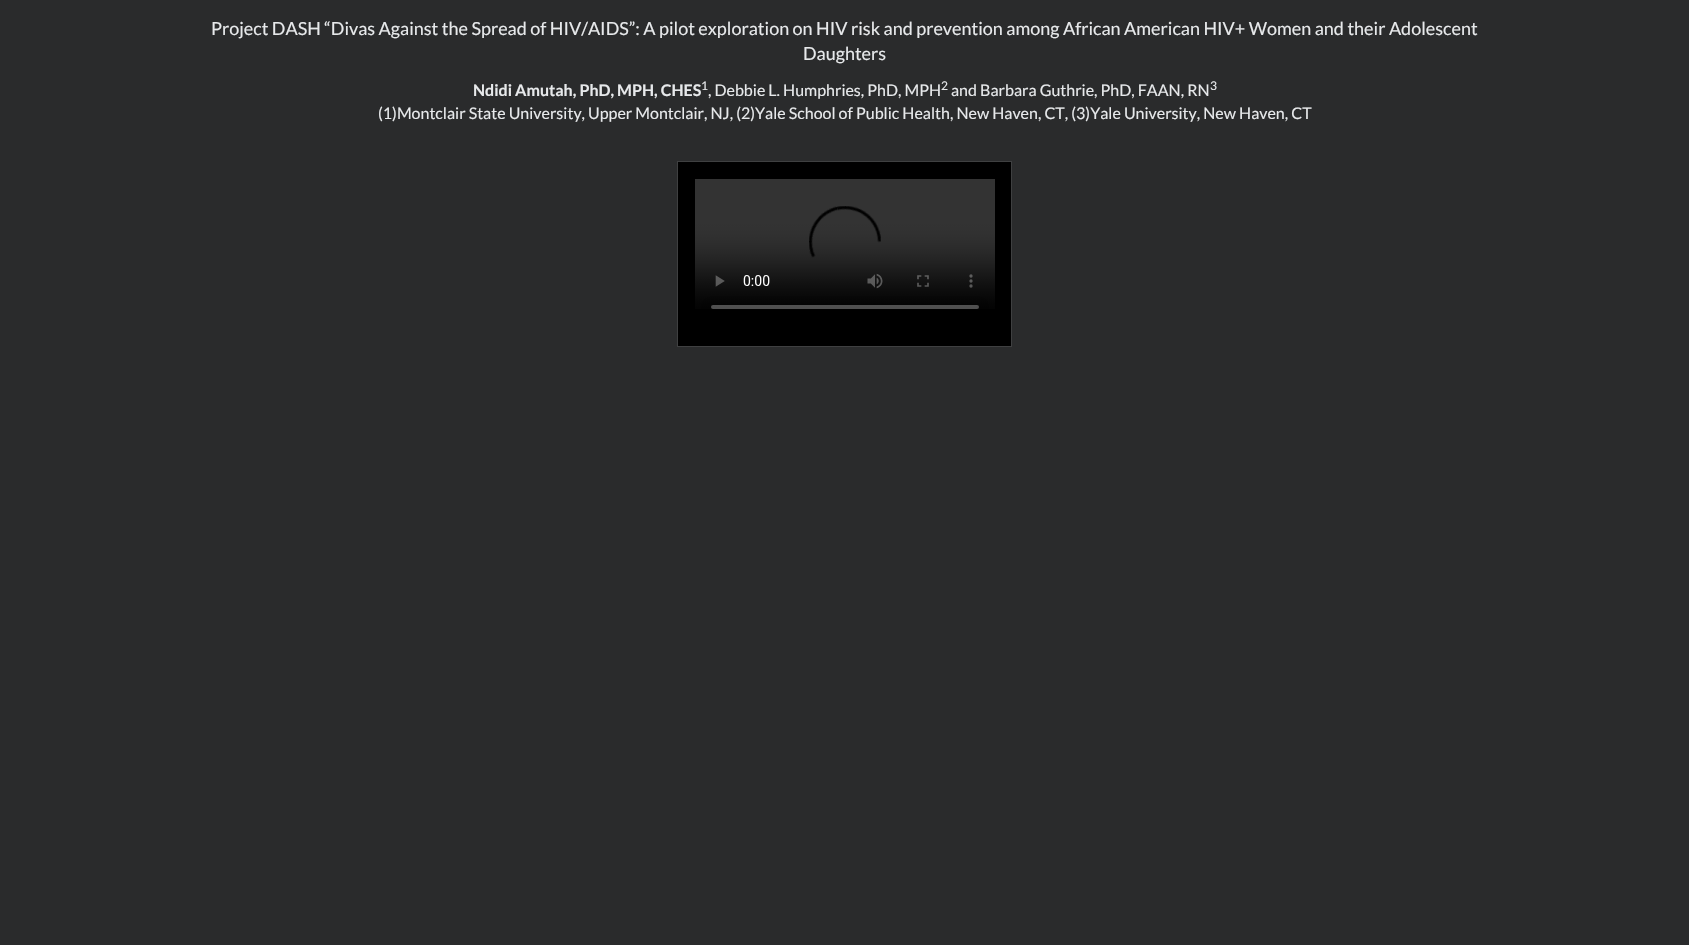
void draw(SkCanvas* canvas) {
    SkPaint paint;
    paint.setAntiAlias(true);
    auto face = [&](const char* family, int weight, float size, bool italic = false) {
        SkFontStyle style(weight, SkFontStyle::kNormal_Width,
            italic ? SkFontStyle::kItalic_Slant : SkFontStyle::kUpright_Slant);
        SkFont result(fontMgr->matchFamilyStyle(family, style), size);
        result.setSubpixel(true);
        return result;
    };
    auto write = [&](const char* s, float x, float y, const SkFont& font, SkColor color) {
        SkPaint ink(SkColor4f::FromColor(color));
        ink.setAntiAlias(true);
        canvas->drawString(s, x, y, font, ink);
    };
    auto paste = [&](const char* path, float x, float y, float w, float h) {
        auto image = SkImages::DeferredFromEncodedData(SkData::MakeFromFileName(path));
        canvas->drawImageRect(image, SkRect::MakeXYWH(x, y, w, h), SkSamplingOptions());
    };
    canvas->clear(SkColorSetRGB(42, 43, 44));
    auto kFont1 = face("Lato", 400, 18);
    write("Project DASH “Divas Against the Spread of HIV/AIDS”: A pilot exploration on HIV risk and prevention among African American HIV+ Women and their Adolescent", 211, 35, kFont1, SkColorSetRGB(231, 233, 235));
    write("Daughters", 803, 60, kFont1, SkColorSetRGB(231, 233, 235));
    auto kFont2 = face("Lato", 700, 16);
    write("Ndidi Amutah, PhD, MPH, CHES", 473, 96, kFont2, SkColorSetRGB(231, 233, 235));
    auto kFont3 = face("Lato", 400, 12);
    write("1", 701, 90, kFont3, SkColorSetRGB(231, 233, 235));
    auto kFont4 = face("Lato", 400, 16);
    write(", Debbie L. Humphries, PhD, MPH", 708, 96, kFont4, SkColorSetRGB(231, 233, 235));
    write("2", 941, 90, kFont3, SkColorSetRGB(231, 233, 235));
    write("and Barbara Guthrie, PhD, FAAN, RN", 951, 96, kFont4, SkColorSetRGB(231, 233, 235));
    write("3", 1210, 90, kFont3, SkColorSetRGB(231, 233, 235));
    write("(1)Montclair State University, Upper Montclair, NJ, (2)Yale School of Public Health, New Haven, CT, (3)Yale University, New Haven, CT", 378, 119, kFont4, SkColorSetRGB(231, 233, 235));
    paint.setColor(SK_ColorBLACK);
    canvas->drawRect(SkRect::MakeXYWH(677.5f, 161.5f, 334, 185), paint);
    paint.setStyle(SkPaint::kStroke_Style);
    paint.setStrokeWidth(1);
    paint.setColor(SkColorSetRGB(63, 64, 65));
    canvas->drawRect(SkRect::MakeXYWH(677.5f, 161.5f, 334, 185), paint);
    paste("pic1.png", 695, 179, 300, 130);
}
